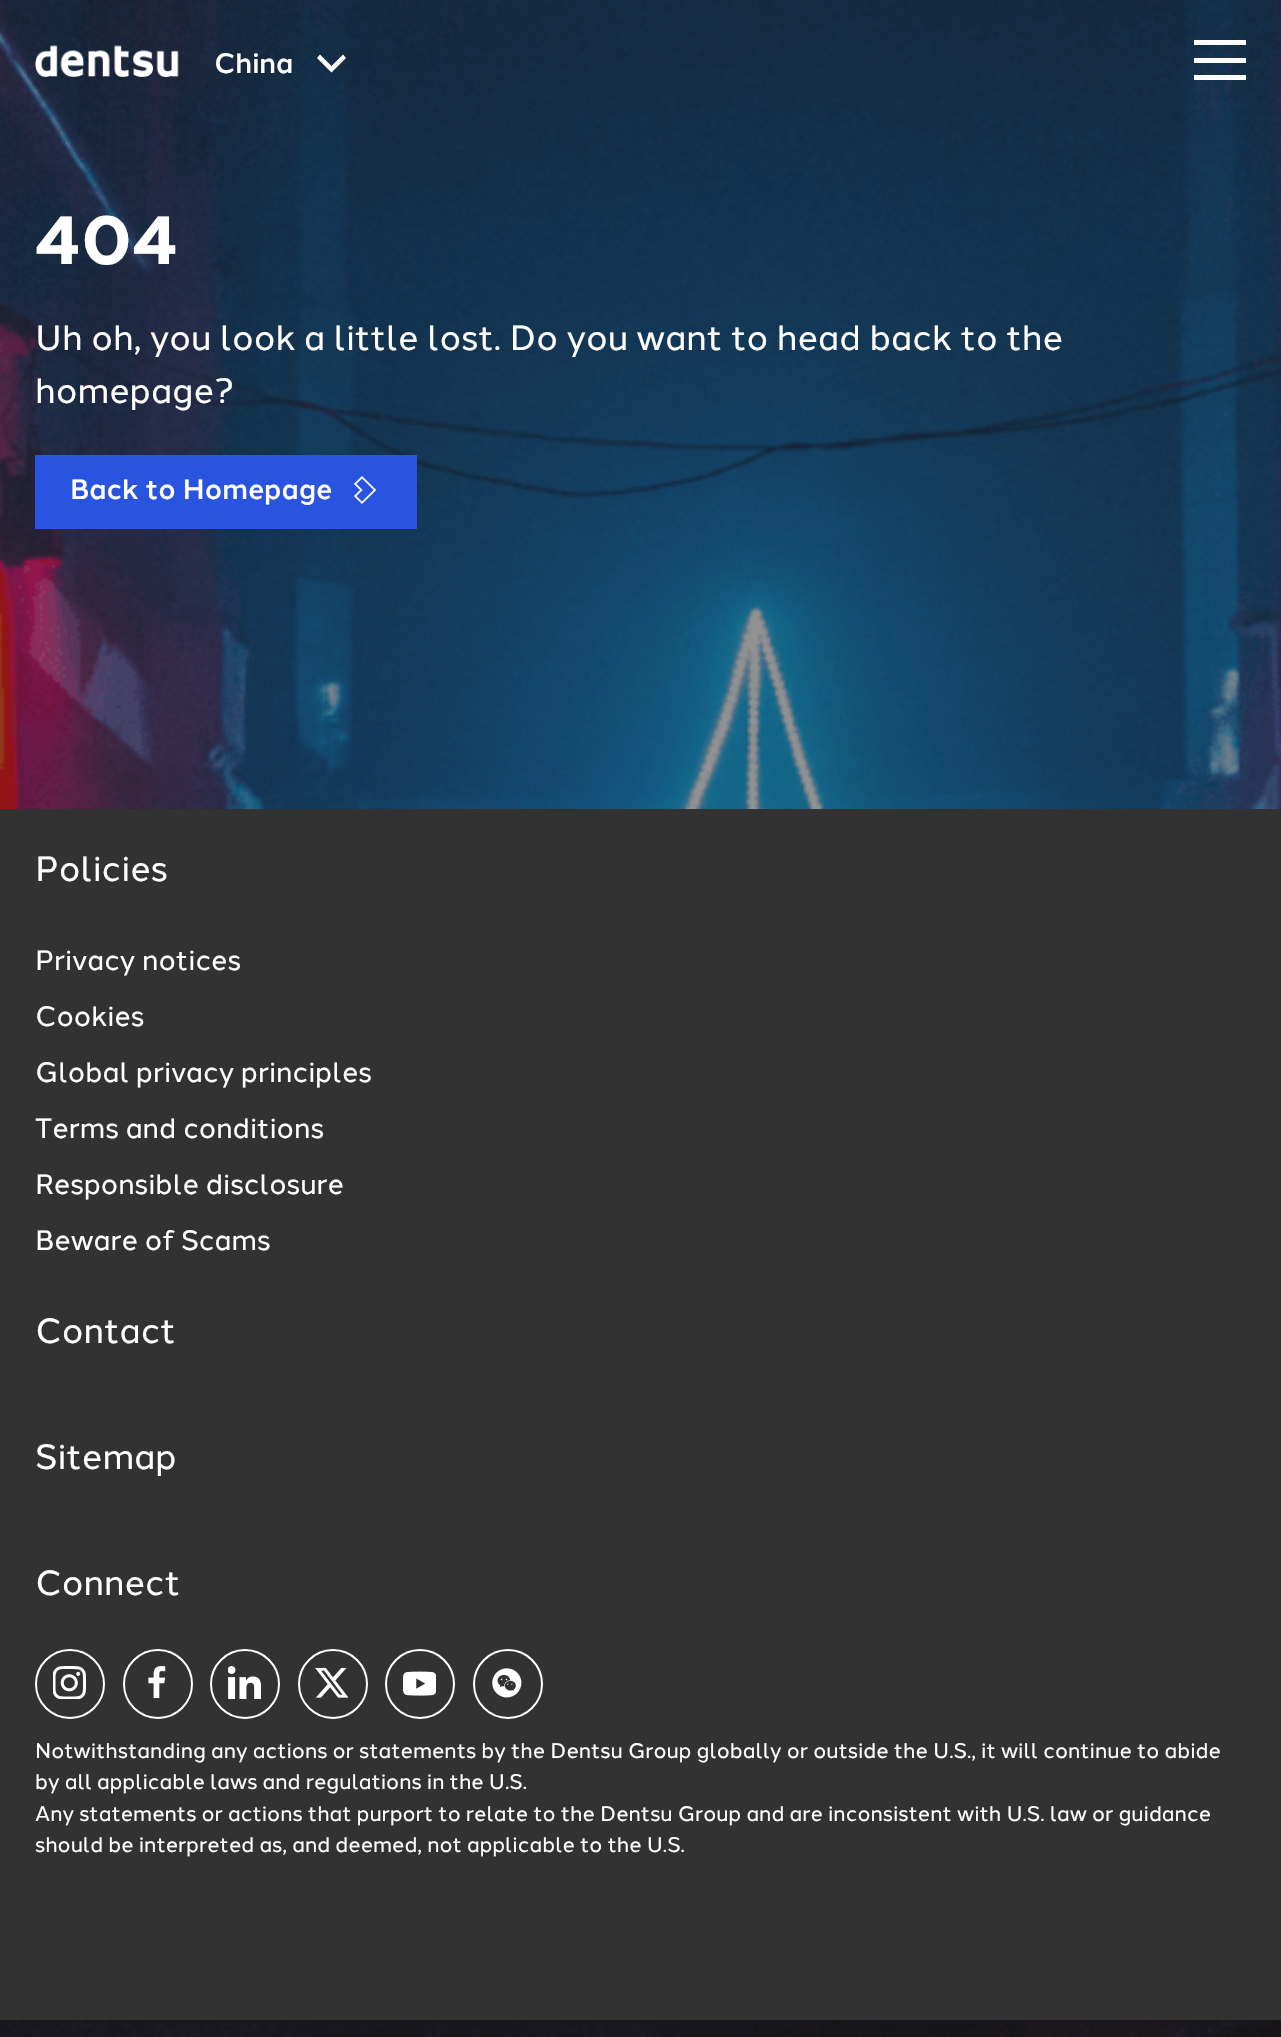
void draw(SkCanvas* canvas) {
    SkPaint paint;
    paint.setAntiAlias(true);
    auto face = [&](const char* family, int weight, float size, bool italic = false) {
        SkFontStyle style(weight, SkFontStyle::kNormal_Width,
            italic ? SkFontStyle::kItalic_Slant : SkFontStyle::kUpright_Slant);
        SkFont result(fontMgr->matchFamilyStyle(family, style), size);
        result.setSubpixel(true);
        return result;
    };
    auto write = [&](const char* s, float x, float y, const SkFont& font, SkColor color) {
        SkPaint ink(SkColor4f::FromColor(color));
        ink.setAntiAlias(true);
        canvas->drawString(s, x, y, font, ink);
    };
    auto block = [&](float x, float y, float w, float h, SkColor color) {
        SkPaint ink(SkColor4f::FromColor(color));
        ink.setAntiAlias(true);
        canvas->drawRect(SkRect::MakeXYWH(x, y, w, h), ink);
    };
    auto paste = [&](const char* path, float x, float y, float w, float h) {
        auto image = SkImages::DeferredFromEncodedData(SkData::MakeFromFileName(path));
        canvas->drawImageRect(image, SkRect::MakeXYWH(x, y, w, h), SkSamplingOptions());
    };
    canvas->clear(SK_ColorWHITE);
    paste("pic1.png", 0, 0, 1281, 2037);
    paste("pic2.png", 35, 45, 144, 32);
    auto kFont1 = face("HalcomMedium", 500, 28);
    write("China", 214, 73, kFont1, SK_ColorWHITE);
    paint.setColor(SK_ColorWHITE);
    canvas->drawPath(SkPathBuilder().moveTo(331.5f, 66).lineTo(343, 54.5f).lineTo(346, 58).lineTo(331.5f, 72.5f).lineTo(317, 58).lineTo(320, 54.5f).close().detach(), paint);
    block(1194, 40, 52, 5, SK_ColorWHITE);
    block(1194, 58, 52, 5, SK_ColorWHITE);
    block(1194, 75, 52, 5, SK_ColorWHITE);
    auto kFont2 = face("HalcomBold", 700, 70);
    write("404", 35, 264, kFont2, SK_ColorWHITE);
    auto kFont3 = face("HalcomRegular", 400, 35);
    write("Uh oh, you look a little lost. Do you want to head back to the", 35, 350, kFont3, SK_ColorWHITE);
    write("homepage?", 35, 403, kFont3, SK_ColorWHITE);
    block(35, 455, 382, 74, SkColorSetRGB(41, 84, 223));
    write("Back to Homepage", 70, 499, kFont1, SK_ColorWHITE);
    paste("pic3.png", 354, 476, 23, 28);
    block(0, 809, 1281, 1211, SkColorSetRGB(50, 50, 50));
    write("Policies", 35, 881, kFont3, SK_ColorWHITE);
    auto kFont4 = face("HalcomRegular", 400, 28);
    write("Privacy notices", 35, 970, kFont4, SK_ColorWHITE);
    write("Cookies", 35, 1026, kFont4, SK_ColorWHITE);
    write("Global privacy principles", 35, 1082, kFont4, SK_ColorWHITE);
    write("Terms and conditions", 35, 1138, kFont4, SK_ColorWHITE);
    write("Responsible disclosure", 35, 1194, kFont4, SK_ColorWHITE);
    write("Beware of Scams", 35, 1250, kFont4, SK_ColorWHITE);
    write("Contact", 35, 1343, kFont3, SK_ColorWHITE);
    write("Sitemap", 35, 1469, kFont3, SK_ColorWHITE);
    write("Connect", 35, 1595, kFont3, SK_ColorWHITE);
    paint.setStyle(SkPaint::kStroke_Style);
    paint.setStrokeWidth(2);
    canvas->drawCircle(70, 1684, 34, paint);
    paste("pic4.png", 53, 1666, 33, 33);
    canvas->drawCircle(158, 1684, 34, paint);
    paste("pic5.png", 148, 1666, 18, 33);
    canvas->drawCircle(245, 1684, 34, paint);
    paste("pic6.png", 228, 1666, 33, 33);
    canvas->drawCircle(333, 1684, 34, paint);
    paste("pic7.png", 315, 1667, 34, 31);
    canvas->drawCircle(420, 1684, 34, paint);
    paste("pic8.png", 403, 1671, 33, 25);
    canvas->drawCircle(508, 1684, 34, paint);
    paste("pic9.png", 492, 1668, 30, 30);
    auto kFont5 = face("HalcomRegular", 400, 21);
    write("Notwithstanding any actions or statements by the Dentsu Group globally or outside the U.S., it will continue to abide", 35, 1758, kFont5, SK_ColorWHITE);
    write("by all applicable laws and regulations in the U.S.", 35, 1789, kFont5, SK_ColorWHITE);
    write("Any statements or actions that purport to relate to the Dentsu Group and are inconsistent with U.S. law or guidance", 35, 1821, kFont5, SK_ColorWHITE);
    write("should be interpreted as, and deemed, not applicable to the U.S.", 35, 1852, kFont5, SK_ColorWHITE);
}
